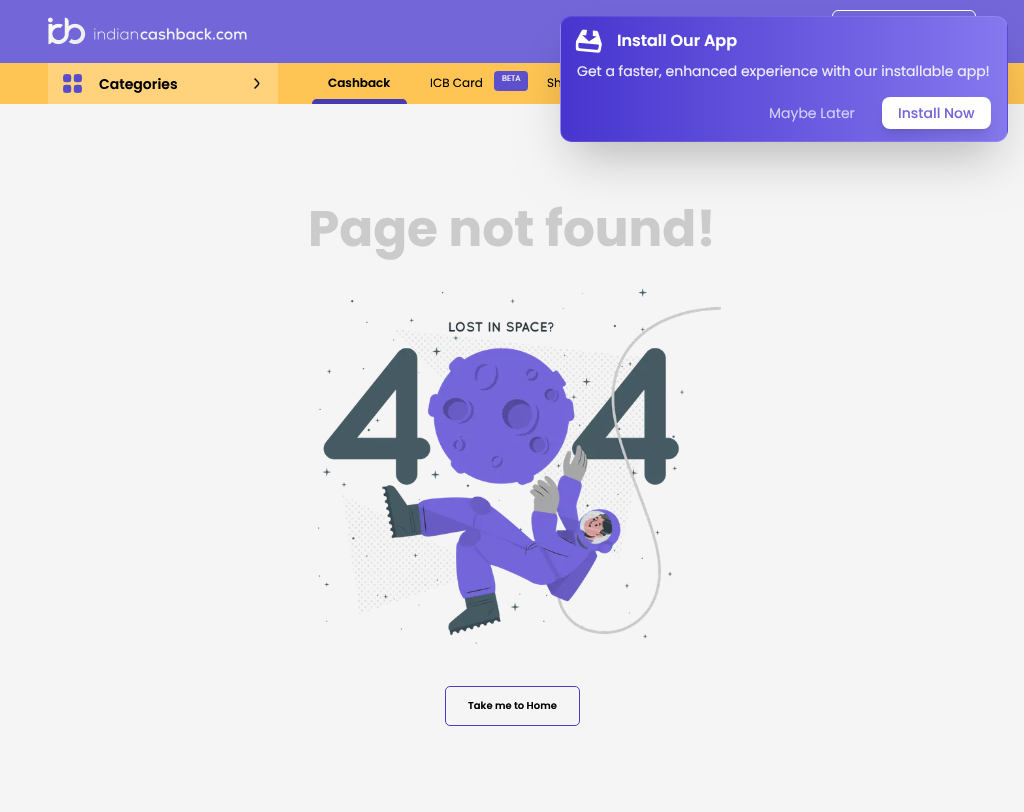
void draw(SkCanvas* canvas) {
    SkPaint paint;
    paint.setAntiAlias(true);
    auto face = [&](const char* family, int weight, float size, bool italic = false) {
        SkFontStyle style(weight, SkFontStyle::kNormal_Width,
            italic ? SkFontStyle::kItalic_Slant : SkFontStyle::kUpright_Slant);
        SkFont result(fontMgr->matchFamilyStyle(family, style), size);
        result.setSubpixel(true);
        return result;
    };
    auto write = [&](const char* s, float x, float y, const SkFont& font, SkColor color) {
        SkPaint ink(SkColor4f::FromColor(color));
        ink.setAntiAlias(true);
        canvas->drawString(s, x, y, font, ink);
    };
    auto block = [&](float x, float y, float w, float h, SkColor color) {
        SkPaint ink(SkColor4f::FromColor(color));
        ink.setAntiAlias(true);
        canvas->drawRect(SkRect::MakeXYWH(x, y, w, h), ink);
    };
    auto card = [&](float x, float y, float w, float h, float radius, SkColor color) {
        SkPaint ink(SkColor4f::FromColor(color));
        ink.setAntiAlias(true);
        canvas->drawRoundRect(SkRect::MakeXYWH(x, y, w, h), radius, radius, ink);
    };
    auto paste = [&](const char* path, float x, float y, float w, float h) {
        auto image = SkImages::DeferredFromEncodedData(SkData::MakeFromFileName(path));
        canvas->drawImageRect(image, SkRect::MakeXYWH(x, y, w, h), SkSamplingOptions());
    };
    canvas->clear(SkColorSetRGB(245, 245, 245));
    block(0, 0, 1024, 63, SkColorSetRGB(115, 102, 217));
    paste("pic1.png", 48, 17, 199, 28);
    paint.setStyle(SkPaint::kStroke_Style);
    paint.setStrokeWidth(1);
    paint.setColor(SK_ColorWHITE);
    canvas->drawRoundRect(SkRect::MakeXYWH(832.5f, 10.5f, 143, 42), 5.5f, 5.5f, paint);
    block(0, 63, 1024, 41, SkColorSetRGB(255, 197, 84));
    block(48, 63, 230, 41, SkColorSetRGB(255, 210, 123));
    paste("pic2.png", 63, 74, 19, 19);
    auto kFont1 = face("Poppins", 600, 14);
    write("Categories", 99, 89, kFont1, SK_ColorBLACK);
    paint.setStrokeWidth(1.5f);
    paint.setStrokeCap(SkPaint::kRound_Cap);
    paint.setStrokeJoin(SkPaint::kRound_Join);
    paint.setColor(SK_ColorBLACK);
    canvas->drawPath(SkPathBuilder().moveTo(255, 88).cubicTo(260, 83, 260, 84, 255, 79).detach(), paint);
    auto kFont2 = face("Poppins", 600, 12);
    write("Cashback", 328, 87, kFont2, SK_ColorBLACK);
    paint.setStyle(SkPaint::kFill_Style);
    paint.setColor(SkColorSetRGB(72, 58, 178));
    canvas->drawPath(SkPathBuilder().moveTo(317, 99).lineTo(402, 99).cubicTo(405, 99, 407, 101, 407, 104).lineTo(312, 104).cubicTo(312, 101, 314, 99, 317, 99).close().detach(), paint);
    auto kFont3 = face("Poppins", 400, 12);
    write("ICB Card", 430, 87, kFont3, SK_ColorBLACK);
    card(494, 71, 34, 20, 4, SkColorSetRGB(94, 80, 204));
    auto kFont4 = face("Poppins", 400, 8);
    write("BETA", 502, 81, kFont4, SK_ColorWHITE);
    write("Sh", 547, 87, kFont3, SK_ColorBLACK);
    paint.setColor(SkColorSetARGB(64, 0, 0, 0));
    paint.setMaskFilter(SkMaskFilter::MakeBlur(kNormal_SkBlurStyle, 25));
    canvas->drawRect(SkRect::MakeXYWH(572, 53, 424, 102), paint);
    paint.setMaskFilter(nullptr);
    canvas->save();
    canvas->clipPath(SkPathBuilder().moveTo(572, 16).lineTo(996, 16).cubicTo(1002.5f, 16, 1008, 21.5f, 1008, 28).lineTo(1008, 130).cubicTo(1008, 136.5f, 1002.5f, 142, 996, 142).lineTo(572, 142).cubicTo(565.5f, 142, 560, 136.5f, 560, 130).lineTo(560, 28).cubicTo(560, 21.5f, 565.5f, 16, 572, 16).close().detach(), true);
    {
        const SkColor colors[] = {SkColorSetRGB(71, 53, 206), SkColorSetRGB(133, 120, 238)};
        const float stops[] = {0, 1};
        const SkPoint ends[] = {{115, 79}, {561, 79}};
        paint.setShader(SkGradientShader::MakeLinear(ends, colors, stops, 2, SkTileMode::kClamp));
        paint.setAlpha(255);
    }
    canvas->drawRect(SkRect::MakeXYWH(560, 16, 1, 126), paint);
    {
        const SkColor colors[] = {SkColorSetRGB(71, 53, 206), SkColorSetRGB(133, 120, 238)};
        const float stops[] = {0, 1};
        const SkPoint ends[] = {{561, 79}, {1007, 79}};
        paint.setShader(SkGradientShader::MakeLinear(ends, colors, stops, 2, SkTileMode::kClamp));
        paint.setAlpha(255);
    }
    canvas->drawRect(SkRect::MakeXYWH(561, 16, 446, 126), paint);
    {
        const SkColor colors[] = {SkColorSetRGB(71, 53, 206), SkColorSetRGB(133, 120, 238)};
        const float stops[] = {0, 1};
        const SkPoint ends[] = {{1007, 79}, {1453, 79}};
        paint.setShader(SkGradientShader::MakeLinear(ends, colors, stops, 2, SkTileMode::kClamp));
        paint.setAlpha(255);
    }
    canvas->drawRect(SkRect::MakeXYWH(1007, 16, 1, 126), paint);
    canvas->restore();
    paint.setStyle(SkPaint::kStroke_Style);
    paint.setStrokeWidth(1);
    paint.setStrokeCap(SkPaint::kButt_Cap);
    paint.setStrokeJoin(SkPaint::kMiter_Join);
    paint.setShader(nullptr);
    paint.setColor(SkColorSetARGB(26, 255, 255, 255));
    canvas->drawRoundRect(SkRect::MakeXYWH(560.5f, 16.5f, 447, 125), 11.5f, 11.5f, paint);
    paste("pic3.png", 575, 29, 27, 24);
    auto kFont5 = face("Poppins", 600, 16);
    write("Install Our App", 617, 46, kFont5, SK_ColorWHITE);
    auto kFont6 = face("Poppins", 400, 14);
    write("Get a faster, enhanced experience with our installable app!", 577, 76, kFont6, SkColorSetRGB(240, 238, 252));
    write("Maybe Later", 769, 118, kFont6, SkColorSetRGB(210, 206, 246));
    paint.setStyle(SkPaint::kFill_Style);
    paint.setColor(SkColorSetARGB(26, 0, 0, 0));
    paint.setMaskFilter(SkMaskFilter::MakeBlur(kNormal_SkBlurStyle, 3));
    canvas->drawRoundRect(SkRect::MakeXYWH(886, 105, 101, 24), 4, 4, paint);
    paint.setMaskFilter(nullptr);
    canvas->save();
    canvas->clipPath(SkPathBuilder().moveTo(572, 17).lineTo(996, 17).cubicTo(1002, 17, 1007, 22, 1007, 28).lineTo(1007, 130).cubicTo(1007, 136, 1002, 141, 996, 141).lineTo(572, 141).cubicTo(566, 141, 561, 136, 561, 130).lineTo(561, 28).cubicTo(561, 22, 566, 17, 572, 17).close().detach(), true);
    paint.setMaskFilter(SkMaskFilter::MakeBlur(kNormal_SkBlurStyle, 7.5f));
    canvas->drawRoundRect(SkRect::MakeXYWH(885, 110, 103, 26), 5, 5, paint);
    paint.setMaskFilter(nullptr);
    canvas->restore();
    card(882, 97, 109, 32, 8, SK_ColorWHITE);
    auto kFont7 = face("Poppins", 500, 14);
    write("Install Now", 898, 118, kFont7, SkColorSetRGB(115, 102, 217));
    auto kFont8 = face("Poppins", 700, 50);
    write("Page not found!", 308, 246, kFont8, SkColorSetRGB(203, 203, 203));
    paste("pic4.png", 318, 288, 403, 356);
    paint.setStyle(SkPaint::kStroke_Style);
    paint.setColor(SkColorSetRGB(77, 62, 193));
    canvas->drawRoundRect(SkRect::MakeXYWH(445.5f, 686.5f, 134, 39), 4.5f, 4.5f, paint);
    auto kFont9 = face("Poppins", 600, 10);
    write("Take me to Home", 468, 709, kFont9, SK_ColorBLACK);
}
